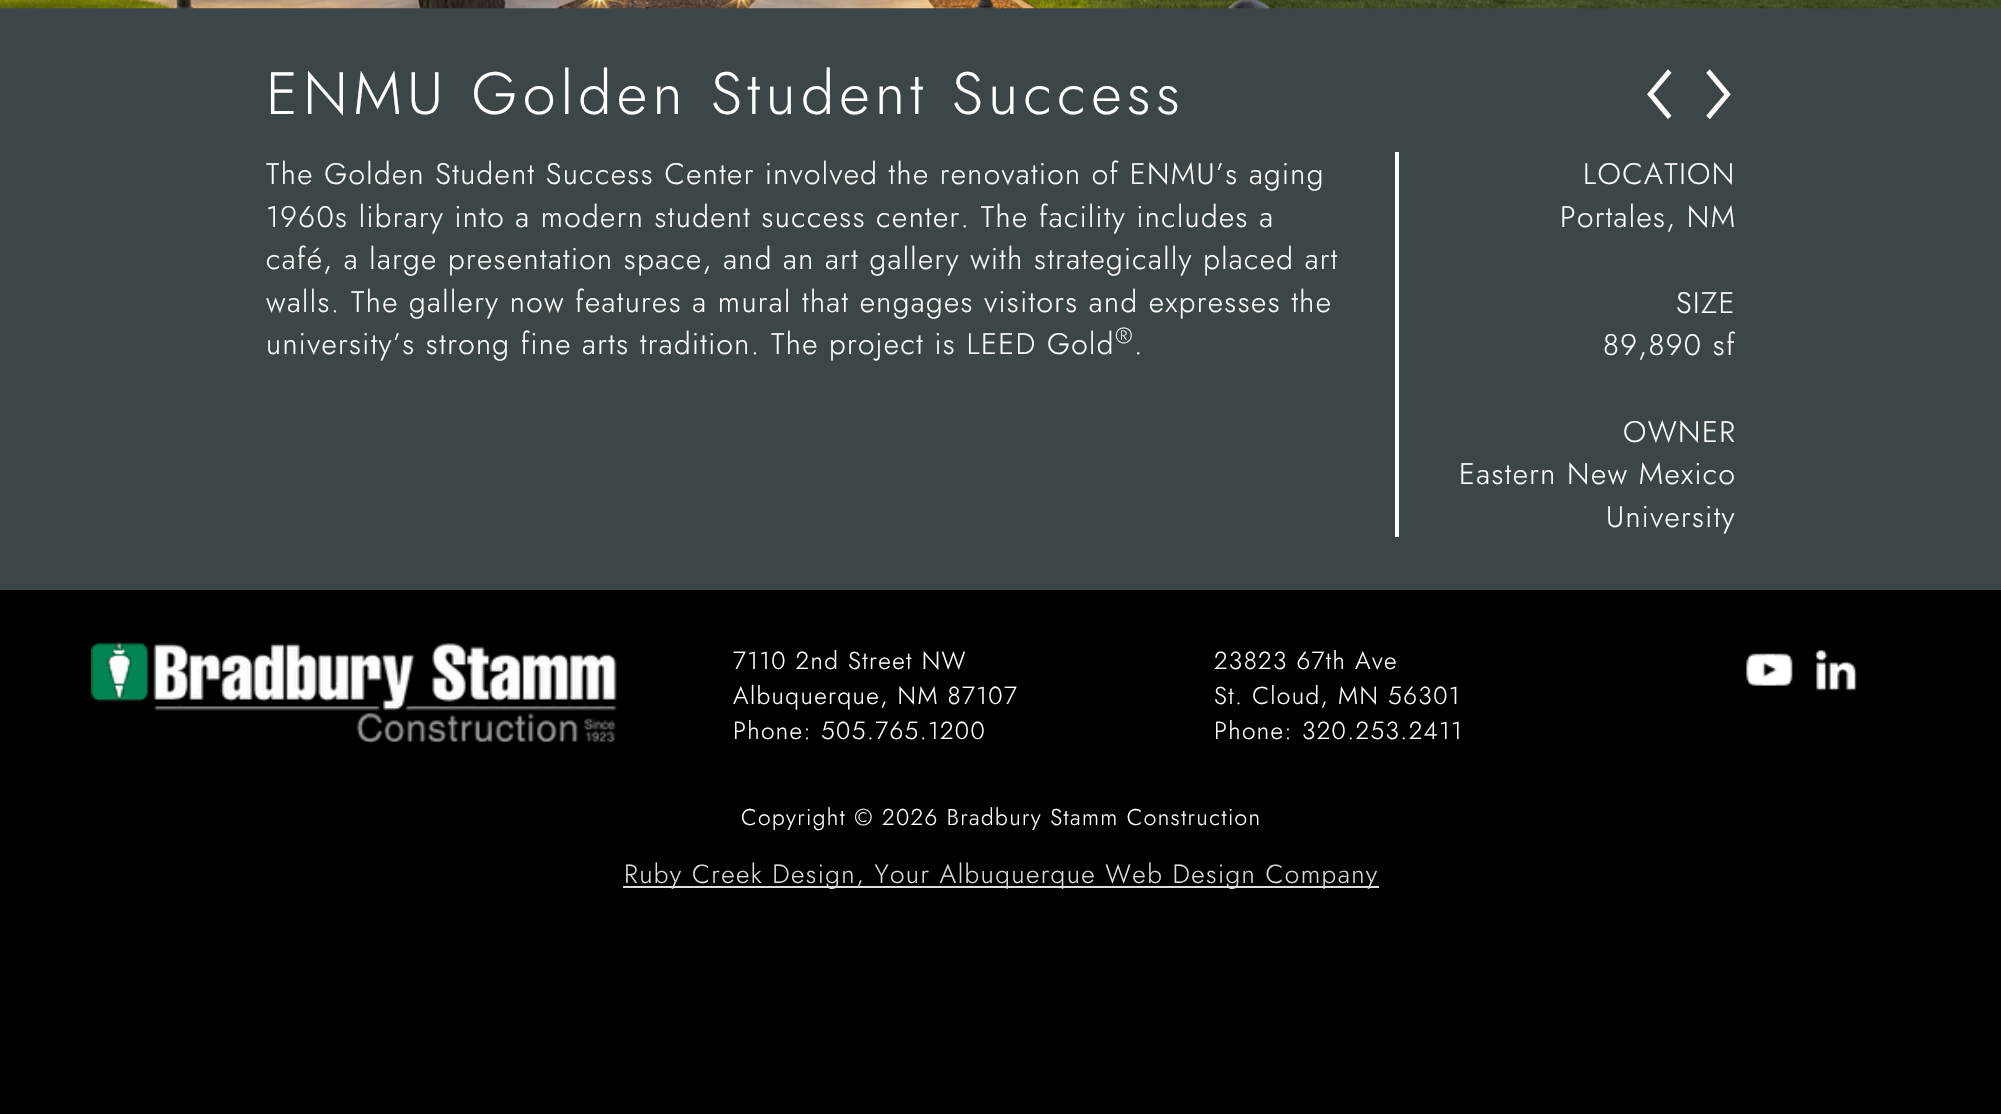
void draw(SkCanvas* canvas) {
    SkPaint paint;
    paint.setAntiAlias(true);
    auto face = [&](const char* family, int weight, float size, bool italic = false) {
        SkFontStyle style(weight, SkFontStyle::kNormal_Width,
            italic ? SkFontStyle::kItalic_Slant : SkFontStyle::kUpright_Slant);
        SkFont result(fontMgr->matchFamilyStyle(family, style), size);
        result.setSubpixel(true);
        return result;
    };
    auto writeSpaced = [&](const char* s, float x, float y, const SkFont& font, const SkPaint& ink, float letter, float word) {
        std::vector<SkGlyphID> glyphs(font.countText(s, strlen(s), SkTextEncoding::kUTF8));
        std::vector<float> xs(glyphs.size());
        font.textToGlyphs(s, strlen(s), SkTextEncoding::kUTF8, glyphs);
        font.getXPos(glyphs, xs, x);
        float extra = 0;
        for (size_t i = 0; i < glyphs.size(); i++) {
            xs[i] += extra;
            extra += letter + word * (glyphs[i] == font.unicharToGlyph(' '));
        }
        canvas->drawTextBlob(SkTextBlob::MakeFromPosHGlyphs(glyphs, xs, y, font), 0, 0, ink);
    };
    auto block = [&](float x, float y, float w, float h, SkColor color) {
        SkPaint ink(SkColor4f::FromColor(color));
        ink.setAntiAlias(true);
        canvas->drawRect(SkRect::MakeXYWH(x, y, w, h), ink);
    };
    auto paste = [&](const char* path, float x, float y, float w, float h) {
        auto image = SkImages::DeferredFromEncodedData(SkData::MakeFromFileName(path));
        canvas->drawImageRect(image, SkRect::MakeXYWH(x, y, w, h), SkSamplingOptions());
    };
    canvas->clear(SkColorSetRGB(60, 69, 71));
    paste("pic1.png", 0, 0, 2001, 9);
    auto kFont1 = face("Jost", 300, 59.5f);
    paint.setColor(SK_ColorWHITE);
    writeSpaced("ENMU Golden Student Success", 266, 114, kFont1, paint, 5.25f, 0);
    auto kFont2 = face("Jost", 300, 105);
    writeSpaced("‹", 1643, 121, kFont2, paint, 1.4f, 0);
    writeSpaced("›", 1698, 121, kFont2, paint, 1.4f, 0);
    auto kFont3 = face("Jost", 300, 29.75f);
    writeSpaced("The Golden Student Success Center involved the renovation of ENMU’s aging", 266, 184, kFont3, paint, 1.4f, 0);
    writeSpaced("1960s library into a modern student success center. The facility includes a", 266, 227, kFont3, paint, 1.4f, 0);
    writeSpaced("café, a large presentation space, and an art gallery with strategically placed art", 266, 269, kFont3, paint, 1.4f, 0);
    writeSpaced("walls. The gallery now features a mural that engages visitors and expresses the", 266, 312, kFont3, paint, 1.4f, 0);
    writeSpaced("university’s strong fine arts tradition. The project is LEED Gold", 266, 354, kFont3, paint, 1.4f, 0);
    auto kFont4 = face("Jost", 300, 22);
    writeSpaced("®", 1115, 343, kFont4, paint, 1.4f, 0);
    writeSpaced(".", 1134, 354, kFont3, paint, 1.4f, 0);
    block(1395, 152, 4, 385, SK_ColorWHITE);
    writeSpaced("LOCATION", 1583, 184, kFont3, paint, 1.4f, 0);
    writeSpaced("Portales, NM", 1560, 227, kFont3, paint, 1.4f, 0);
    writeSpaced("SIZE", 1676, 313, kFont3, paint, 1.4f, 0);
    writeSpaced("89,890 sf", 1603, 355, kFont3, paint, 1.4f, 0);
    writeSpaced("OWNER", 1623, 442, kFont3, paint, 1.4f, 0);
    writeSpaced("Eastern New Mexico", 1459, 484, kFont3, paint, 1.4f, 0);
    writeSpaced("University", 1606, 527, kFont3, paint, 1.4f, 0);
    block(0, 590, 2001, 524, SK_ColorBLACK);
    paste("pic2.png", 91, 641, 526, 103);
    auto kFont5 = face("Jost", 300, 24.5f);
    writeSpaced("7110 2nd Street NW", 733, 669, kFont5, paint, 1.4f, 0);
    writeSpaced("Albuquerque, NM 87107", 733, 704, kFont5, paint, 1.4f, 0);
    writeSpaced("Phone: 505.765.1200", 733, 739, kFont5, paint, 1.4f, 0);
    writeSpaced("23823 67th Ave", 1214, 669, kFont5, paint, 1.4f, 0);
    writeSpaced("St. Cloud, MN 56301", 1214, 704, kFont5, paint, 1.4f, 0);
    writeSpaced("Phone: 320.253.2411", 1214, 739, kFont5, paint, 1.4f, 0);
    paste("pic3.png", 1746, 653, 47, 33);
    paste("pic4.png", 1814, 650, 43, 41);
    auto kFont6 = face("Jost", 300, 22.75f);
    writeSpaced("Copyright © 2026 Bradbury Stamm Construction", 741, 825, kFont6, paint, 1.4f, 0);
    block(623, 886, 756, 2, SkColorSetRGB(221, 221, 221));
    auto kFont7 = face("Jost", 300, 26.25f);
    paint.setColor(SkColorSetRGB(221, 221, 221));
    writeSpaced("Ruby Creek Design, Your Albuquerque Web Design Company", 624, 883, kFont7, paint, 1.4f, 0);
}
